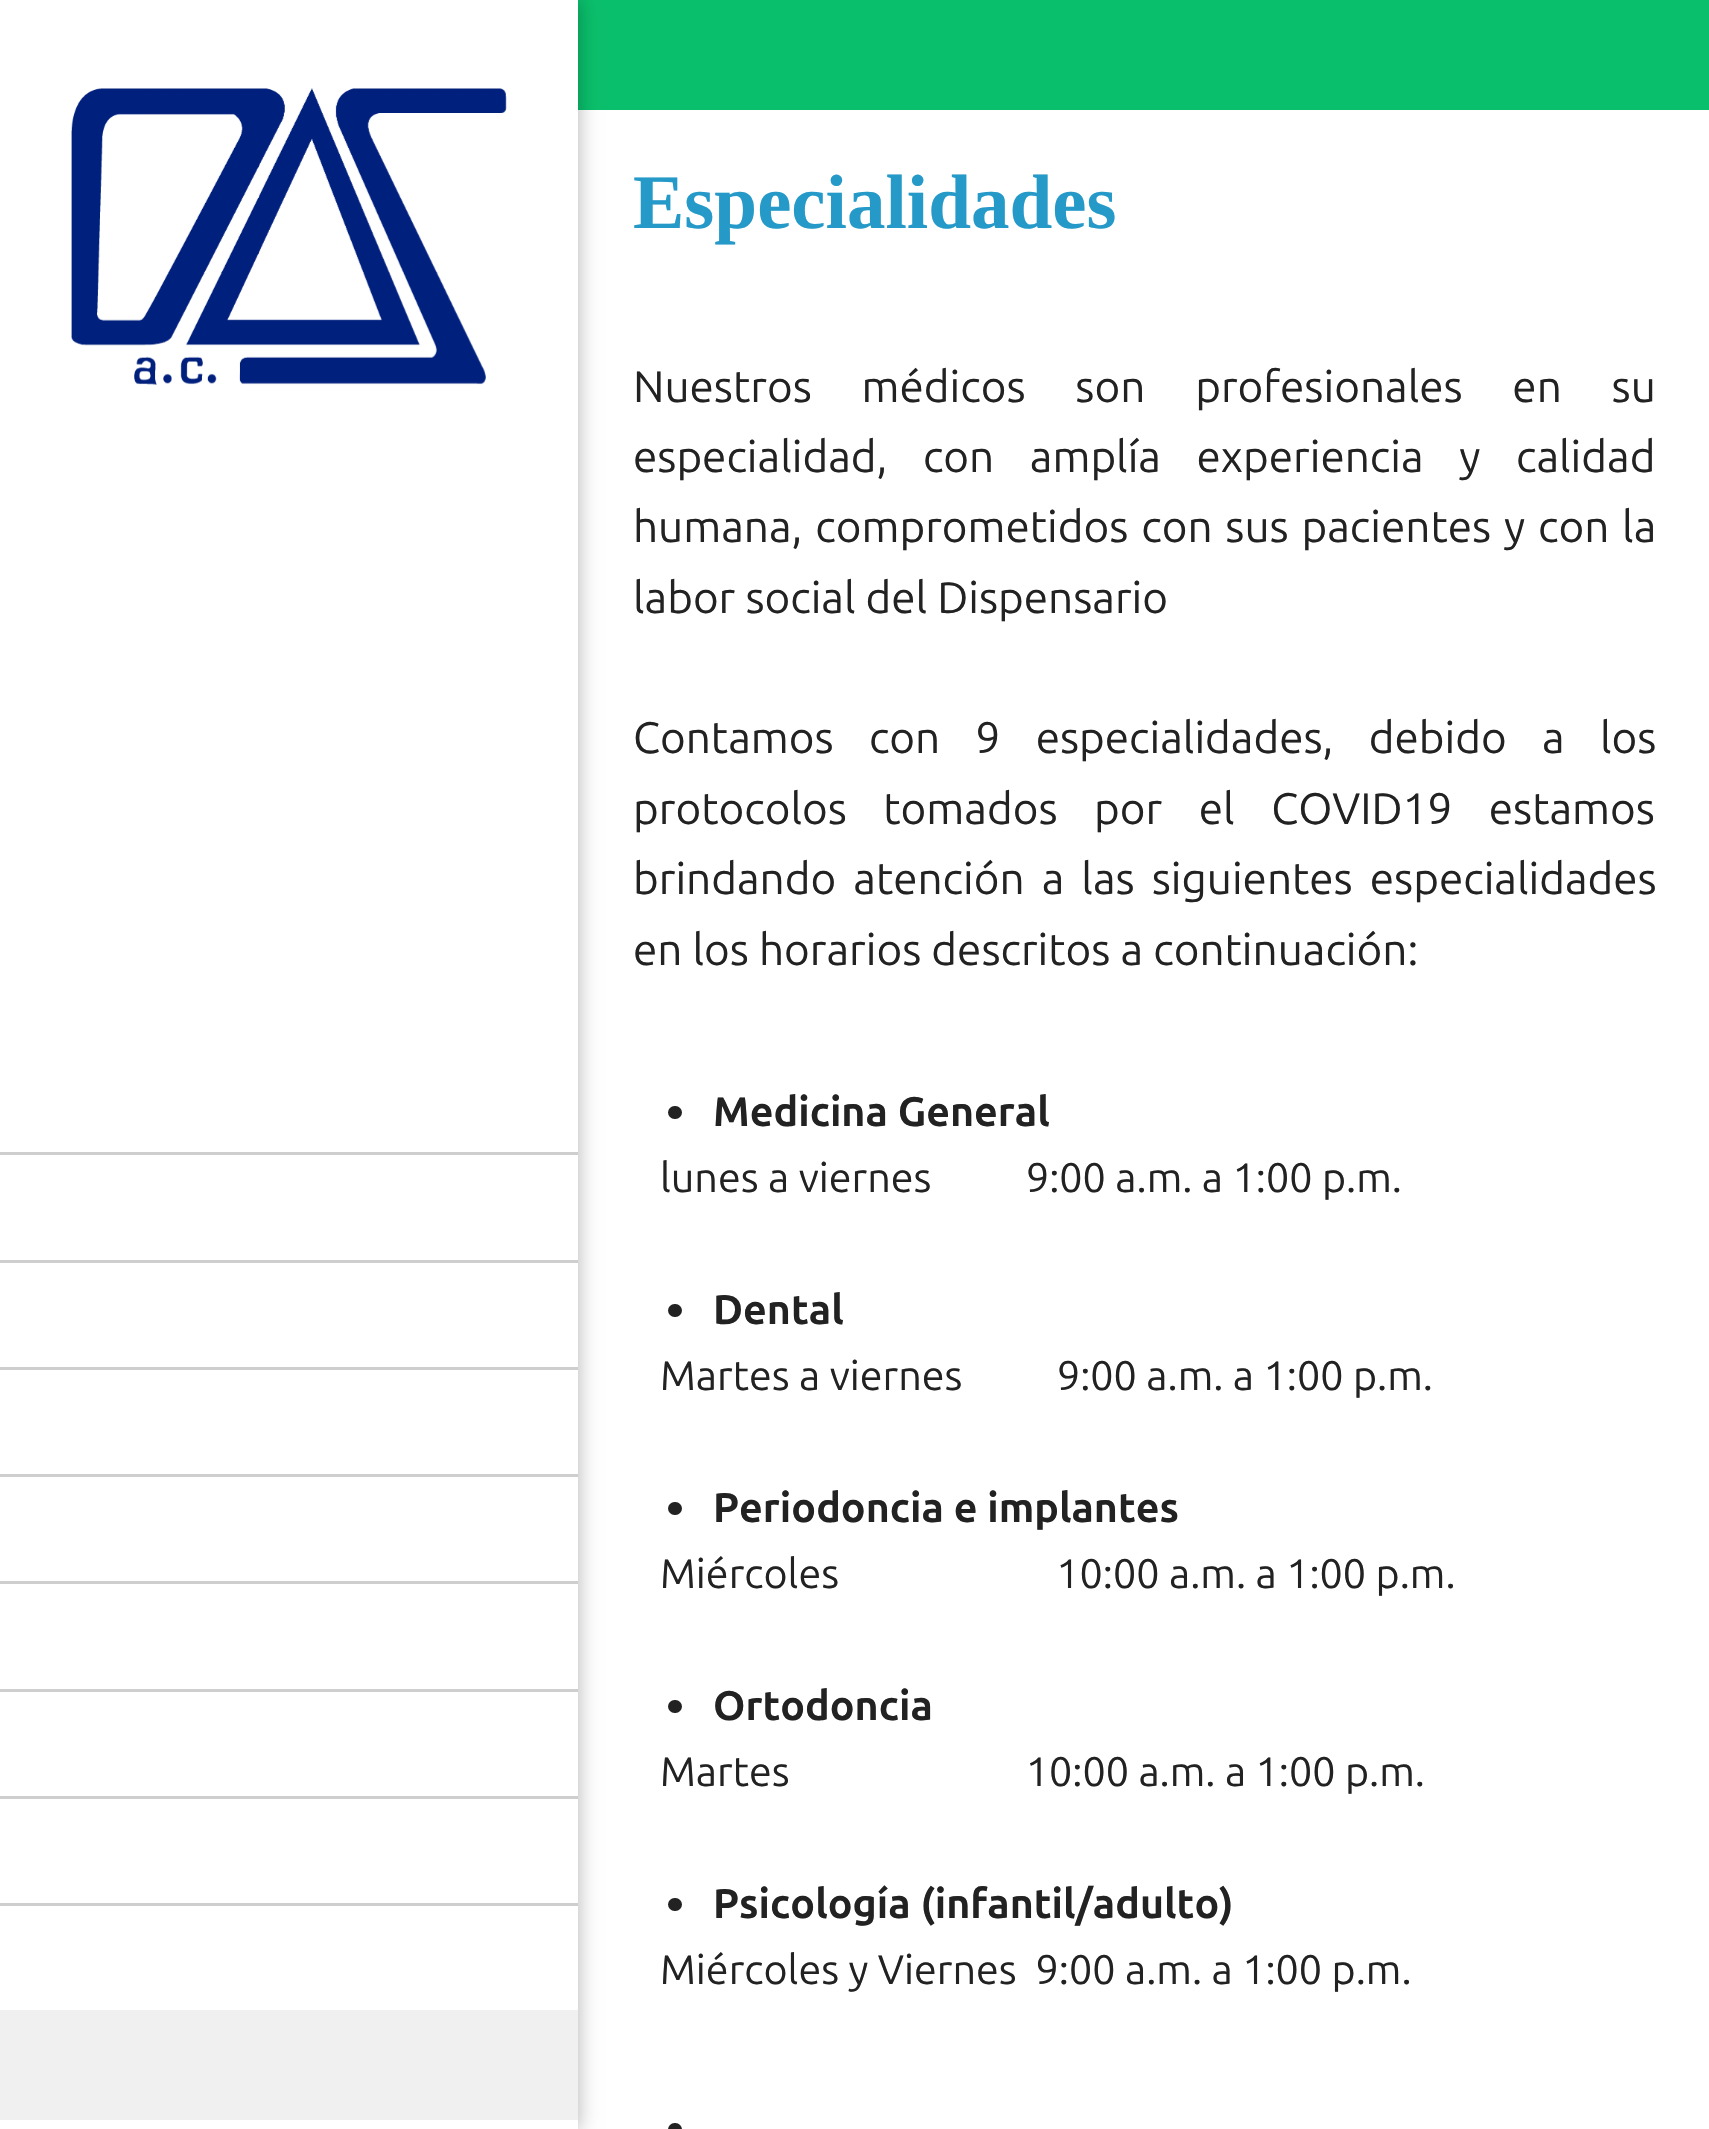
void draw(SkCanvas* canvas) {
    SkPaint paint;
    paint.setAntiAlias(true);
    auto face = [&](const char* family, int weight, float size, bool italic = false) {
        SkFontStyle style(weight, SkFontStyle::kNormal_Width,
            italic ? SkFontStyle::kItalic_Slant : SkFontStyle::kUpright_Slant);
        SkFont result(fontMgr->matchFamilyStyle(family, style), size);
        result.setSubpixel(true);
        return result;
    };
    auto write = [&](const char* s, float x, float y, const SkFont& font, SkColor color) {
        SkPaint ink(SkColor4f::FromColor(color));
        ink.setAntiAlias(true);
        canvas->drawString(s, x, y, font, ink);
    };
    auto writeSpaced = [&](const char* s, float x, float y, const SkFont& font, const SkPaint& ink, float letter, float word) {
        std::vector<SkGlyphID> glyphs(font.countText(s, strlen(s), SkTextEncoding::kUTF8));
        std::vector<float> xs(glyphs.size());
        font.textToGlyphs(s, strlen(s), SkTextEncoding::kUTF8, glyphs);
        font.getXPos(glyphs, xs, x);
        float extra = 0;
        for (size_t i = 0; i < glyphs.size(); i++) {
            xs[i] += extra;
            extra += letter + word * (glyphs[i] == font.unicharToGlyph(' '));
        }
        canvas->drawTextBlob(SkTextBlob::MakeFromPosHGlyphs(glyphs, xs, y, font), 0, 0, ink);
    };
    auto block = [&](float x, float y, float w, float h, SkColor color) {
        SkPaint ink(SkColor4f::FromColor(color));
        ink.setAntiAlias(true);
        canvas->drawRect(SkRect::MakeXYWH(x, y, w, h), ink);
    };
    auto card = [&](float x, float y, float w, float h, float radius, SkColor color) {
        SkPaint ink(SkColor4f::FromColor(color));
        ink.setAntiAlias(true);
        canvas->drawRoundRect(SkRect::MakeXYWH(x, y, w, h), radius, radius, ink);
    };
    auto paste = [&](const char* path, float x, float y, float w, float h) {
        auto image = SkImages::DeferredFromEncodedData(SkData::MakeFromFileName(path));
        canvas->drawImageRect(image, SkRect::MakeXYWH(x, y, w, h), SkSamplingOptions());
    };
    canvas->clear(SK_ColorWHITE);
    block(578, 0, 1131, 110, SkColorSetRGB(10, 191, 107));
    paint.setColor(SkColorSetARGB(77, 0, 0, 0));
    paint.setMaskFilter(SkMaskFilter::MakeBlur(kNormal_SkBlurStyle, 9.5f));
    canvas->drawRect(SkRect::MakeXYWH(0, 0, 578, 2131), paint);
    paint.setMaskFilter(nullptr);
    block(0, 0, 578, 2129, SK_ColorWHITE);
    paste("pic1.png", 71, 88, 436, 297);
    block(0, 1152, 578, 3, SkColorSetRGB(206, 206, 206));
    block(0, 1260, 578, 3, SkColorSetRGB(206, 206, 206));
    block(0, 1367, 578, 3, SkColorSetRGB(206, 206, 206));
    block(0, 1474, 578, 3, SkColorSetRGB(206, 206, 206));
    block(0, 1581, 578, 3, SkColorSetRGB(206, 206, 206));
    block(0, 1689, 578, 3, SkColorSetRGB(206, 206, 206));
    block(0, 1796, 578, 3, SkColorSetRGB(206, 206, 206));
    block(0, 1903, 578, 3, SkColorSetRGB(206, 206, 206));
    block(0, 2010, 578, 110, SkColorSetRGB(240, 240, 240));
    auto kFont1 = face("Liberation Serif", 700, 77);
    write("Especialidades", 633, 228, kFont1, SkColorSetRGB(37, 154, 201));
    auto kFont2 = face("Ubuntu", 400, 44);
    paint.setColor(SkColorSetRGB(34, 34, 34));
    writeSpaced("Nuestros médicos son profesionales en su", 633, 402, kFont2, paint, 0, 39.75f);
    writeSpaced("especialidad, con amplía experiencia y calidad", 633, 472, kFont2, paint, 0, 25.5f);
    writeSpaced("humana, comprometidos con sus pacientes y con la", 633, 542, kFont2, paint, 0, 2.75f);
    write("labor social del Dispensario", 633, 613, kFont2, SkColorSetRGB(34, 34, 34));
    writeSpaced("Contamos con 9 especialidades, debido a los", 633, 753, kFont2, paint, 0, 25.25f);
    writeSpaced("protocolos tomados por el COVID19 estamos", 633, 824, kFont2, paint, 0, 26.5f);
    writeSpaced("brindando atención a las siguientes especialidades", 633, 894, kFont2, paint, 0, 7);
    write("en los horarios descritos a continuación:", 633, 965, kFont2, SkColorSetRGB(34, 34, 34));
    card(668, 1106, 14, 13, 6.5f, SkColorSetRGB(34, 34, 34));
    auto kFont3 = face("Ubuntu", 700, 41.25f);
    write("Medicina General", 713, 1126, kFont3, SkColorSetRGB(34, 34, 34));
    auto kFont4 = face("Ubuntu", 400, 41.25f);
    write("lunes a viernes          9:00 a.m. a 1:00 p.m.", 660, 1192, kFont4, SkColorSetRGB(34, 34, 34));
    card(668, 1304, 14, 13, 6.5f, SkColorSetRGB(34, 34, 34));
    write("Dental", 713, 1324, kFont3, SkColorSetRGB(34, 34, 34));
    write("Martes a viernes          9:00 a.m. a 1:00 p.m.", 660, 1390, kFont4, SkColorSetRGB(34, 34, 34));
    card(668, 1502, 14, 13, 6.5f, SkColorSetRGB(34, 34, 34));
    write("Periodoncia e implantes", 713, 1522, kFont3, SkColorSetRGB(34, 34, 34));
    write("Miércoles                       10:00 a.m. a 1:00 p.m.", 660, 1588, kFont4, SkColorSetRGB(34, 34, 34));
    card(668, 1700, 14, 13, 6.5f, SkColorSetRGB(34, 34, 34));
    write("Ortodoncia", 713, 1720, kFont3, SkColorSetRGB(34, 34, 34));
    write("Martes                         10:00 a.m. a 1:00 p.m.", 660, 1786, kFont4, SkColorSetRGB(34, 34, 34));
    card(668, 1898, 14, 13, 6.5f, SkColorSetRGB(34, 34, 34));
    write("Psicología (infantil/adulto)", 713, 1918, kFont3, SkColorSetRGB(34, 34, 34));
    write("Miércoles y Viernes  9:00 a.m. a 1:00 p.m.", 660, 1984, kFont4, SkColorSetRGB(34, 34, 34));
    card(668, 2123, 14, 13, 7, SkColorSetRGB(34, 34, 34));
}
